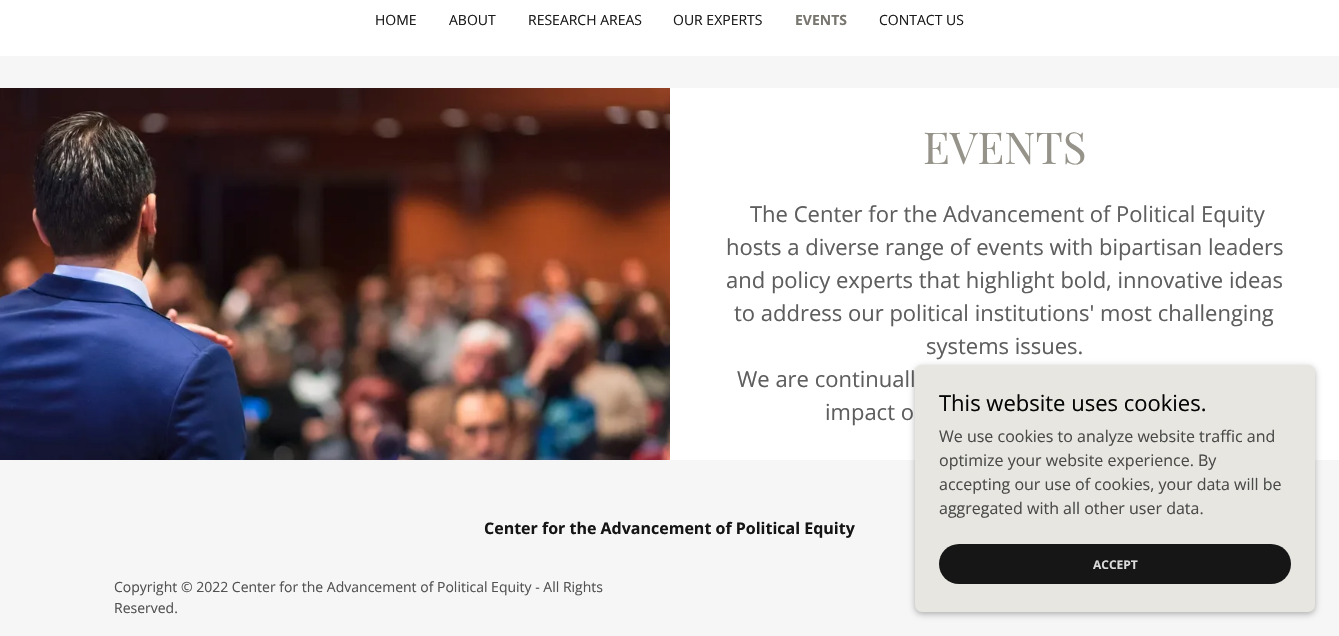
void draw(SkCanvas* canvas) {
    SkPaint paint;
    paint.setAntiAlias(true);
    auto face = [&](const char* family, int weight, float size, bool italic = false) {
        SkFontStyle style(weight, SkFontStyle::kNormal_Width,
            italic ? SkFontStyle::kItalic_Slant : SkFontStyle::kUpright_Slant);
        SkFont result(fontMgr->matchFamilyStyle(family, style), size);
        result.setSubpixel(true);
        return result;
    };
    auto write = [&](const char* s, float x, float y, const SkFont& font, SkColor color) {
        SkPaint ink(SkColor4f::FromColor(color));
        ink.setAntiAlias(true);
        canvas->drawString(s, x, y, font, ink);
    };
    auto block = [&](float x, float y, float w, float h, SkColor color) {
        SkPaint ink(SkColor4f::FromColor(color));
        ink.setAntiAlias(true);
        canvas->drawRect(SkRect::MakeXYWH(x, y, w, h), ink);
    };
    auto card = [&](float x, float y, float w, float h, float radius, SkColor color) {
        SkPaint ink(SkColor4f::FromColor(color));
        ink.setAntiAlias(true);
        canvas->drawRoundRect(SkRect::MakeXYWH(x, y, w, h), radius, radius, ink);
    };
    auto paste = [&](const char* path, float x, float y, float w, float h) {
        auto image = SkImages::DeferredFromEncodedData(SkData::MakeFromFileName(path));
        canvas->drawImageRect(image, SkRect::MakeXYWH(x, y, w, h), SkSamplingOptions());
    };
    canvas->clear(SkColorSetRGB(246, 246, 246));
    block(0, 0, 1339, 56, SK_ColorWHITE);
    auto kFont1 = face("Open Sans", 400, 14);
    write("HOME", 375, 25, kFont1, SkColorSetRGB(27, 27, 27));
    write("ABOUT", 449, 25, kFont1, SkColorSetRGB(27, 27, 27));
    write("RESEARCH AREAS", 528, 25, kFont1, SkColorSetRGB(27, 27, 27));
    write("OUR EXPERTS", 673, 25, kFont1, SkColorSetRGB(27, 27, 27));
    auto kFont2 = face("Open Sans", 700, 14);
    write("EVENTS", 795, 25, kFont2, SkColorSetRGB(120, 118, 111));
    write("CONTACT US", 879, 25, kFont1, SkColorSetRGB(27, 27, 27));
    block(670, 88, 669, 372, SK_ColorWHITE);
    paste("pic1.png", 0, 88, 670, 372);
    auto kFont3 = face("Playfair Display", 400, 44);
    write("EVENTS", 923, 164, kFont3, SkColorSetRGB(150, 148, 138));
    auto kFont4 = face("Open Sans", 400, 22);
    write("The Center for the Advancement of Political Equity", 750, 222, kFont4, SkColorSetRGB(94, 94, 94));
    write("hosts a diverse range of events with bipartisan leaders", 726, 255, kFont4, SkColorSetRGB(94, 94, 94));
    write("and policy experts that highlight bold, innovative ideas", 726, 288, kFont4, SkColorSetRGB(94, 94, 94));
    write("to address our political institutions' most challenging", 734, 321, kFont4, SkColorSetRGB(94, 94, 94));
    write("systems issues.", 926, 354, kFont4, SkColorSetRGB(94, 94, 94));
    write("We are continuall", 737, 387, kFont4, SkColorSetRGB(94, 94, 94));
    write("impact o", 825, 420, kFont4, SkColorSetRGB(94, 94, 94));
    auto kFont5 = face("Open Sans", 700, 16);
    write("Center for the Advancement of Political Equity", 484, 534, kFont5, SkColorSetRGB(21, 21, 21));
    write("Copyright © 2022 Center for the Advancement of Political Equity - All Rights", 114, 592, kFont1, SkColorSetRGB(82, 82, 82));
    write("Reserved.", 114, 613, kFont1, SkColorSetRGB(82, 82, 82));
    paint.setColor(SkColorSetARGB(77, 0, 0, 0));
    paint.setMaskFilter(SkMaskFilter::MakeBlur(kNormal_SkBlurStyle, 3));
    canvas->drawRoundRect(SkRect::MakeXYWH(915, 367, 400, 247), 7, 7, paint);
    paint.setMaskFilter(nullptr);
    card(915, 365, 400, 247, 7, SkColorSetRGB(231, 230, 225));
    write("This website uses cookies.", 939, 411, kFont4, SkColorSetRGB(5, 5, 5));
    auto kFont6 = face("Open Sans", 400, 16);
    write("We use cookies to analyze website traffic and", 939, 442, kFont6, SkColorSetRGB(74, 74, 73));
    write("optimize your website experience. By", 939, 466, kFont6, SkColorSetRGB(74, 74, 73));
    write("accepting our use of cookies, your data will be", 939, 490, kFont6, SkColorSetRGB(74, 74, 73));
    write("aggregated with all other user data.", 939, 514, kFont6, SkColorSetRGB(74, 74, 73));
    card(939, 544, 352, 40, 20, SkColorSetRGB(22, 22, 22));
    auto kFont7 = face("Open Sans", 700, 12);
    write("ACCEPT", 1093, 569, kFont7, SkColorSetRGB(219, 219, 219));
}
